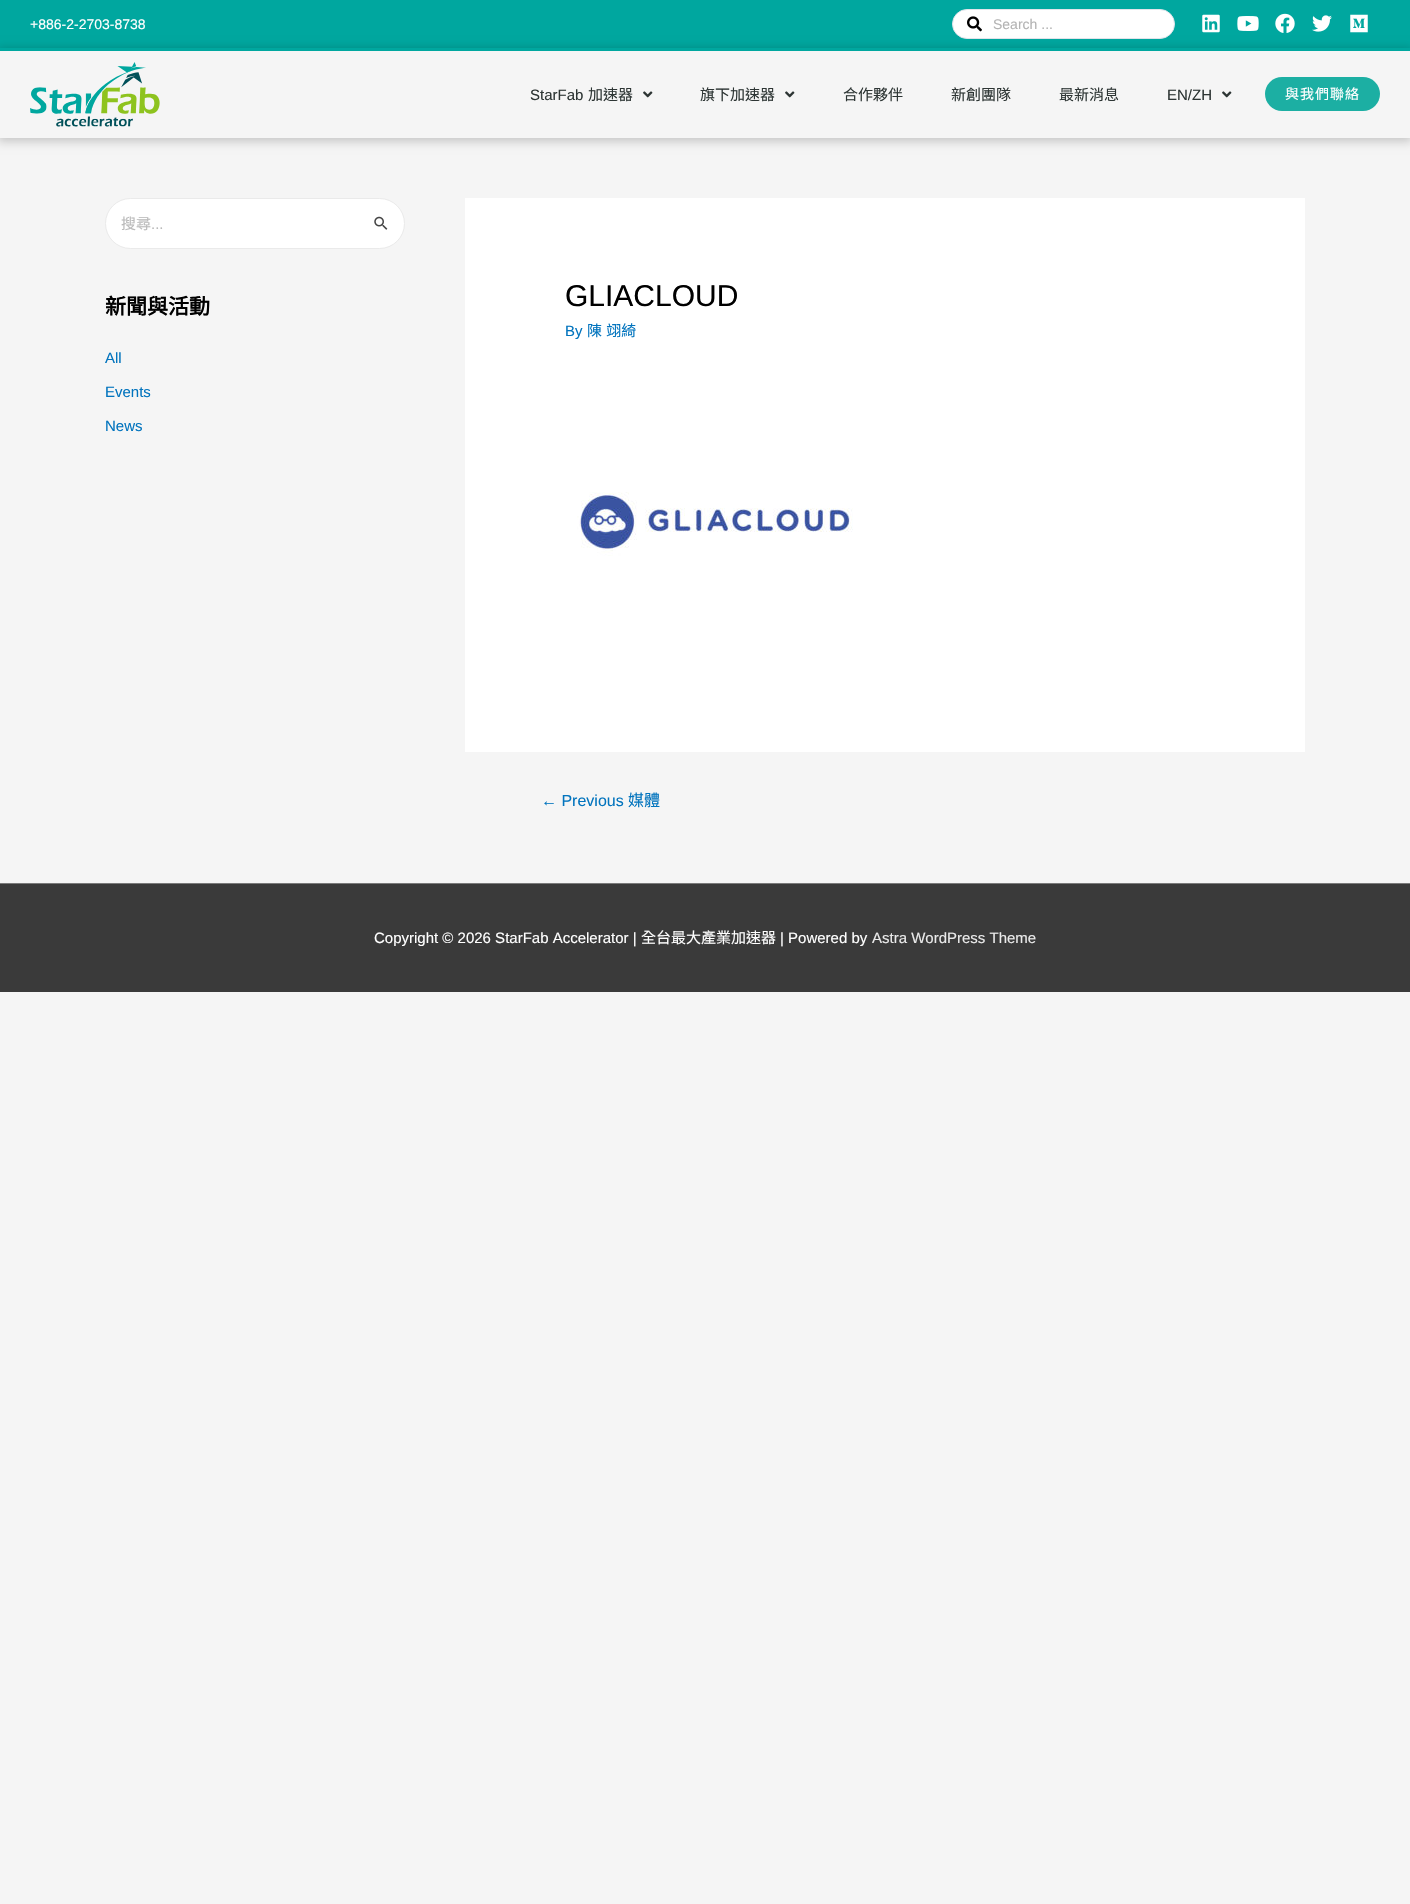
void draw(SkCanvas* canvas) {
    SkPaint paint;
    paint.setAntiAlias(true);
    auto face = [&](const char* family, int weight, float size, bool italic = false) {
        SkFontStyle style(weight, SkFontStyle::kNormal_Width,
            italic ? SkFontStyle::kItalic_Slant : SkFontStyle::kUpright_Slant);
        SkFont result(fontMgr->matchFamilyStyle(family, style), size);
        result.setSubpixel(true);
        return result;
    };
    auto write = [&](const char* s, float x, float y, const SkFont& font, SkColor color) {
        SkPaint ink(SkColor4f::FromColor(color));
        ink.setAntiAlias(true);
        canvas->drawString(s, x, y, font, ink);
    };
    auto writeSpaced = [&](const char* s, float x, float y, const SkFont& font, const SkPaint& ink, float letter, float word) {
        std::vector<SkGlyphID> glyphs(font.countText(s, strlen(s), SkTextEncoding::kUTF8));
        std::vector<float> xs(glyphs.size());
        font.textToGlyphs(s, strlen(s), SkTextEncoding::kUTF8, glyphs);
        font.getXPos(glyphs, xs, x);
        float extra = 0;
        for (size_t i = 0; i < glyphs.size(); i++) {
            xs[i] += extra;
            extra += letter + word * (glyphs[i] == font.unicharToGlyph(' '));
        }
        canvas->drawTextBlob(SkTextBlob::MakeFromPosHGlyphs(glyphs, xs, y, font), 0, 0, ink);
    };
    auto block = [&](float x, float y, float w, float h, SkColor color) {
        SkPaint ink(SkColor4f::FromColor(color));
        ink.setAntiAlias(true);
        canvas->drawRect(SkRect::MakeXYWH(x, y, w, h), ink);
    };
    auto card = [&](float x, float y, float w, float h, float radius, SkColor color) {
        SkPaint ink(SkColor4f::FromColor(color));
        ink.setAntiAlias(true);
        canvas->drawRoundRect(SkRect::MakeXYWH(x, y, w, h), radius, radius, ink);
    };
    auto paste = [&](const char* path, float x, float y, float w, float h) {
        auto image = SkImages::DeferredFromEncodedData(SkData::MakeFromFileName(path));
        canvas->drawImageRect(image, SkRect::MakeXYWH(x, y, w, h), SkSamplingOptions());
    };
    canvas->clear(SkColorSetRGB(245, 245, 245));
    block(0, 0, 1410, 48, SkColorSetRGB(0, 167, 159));
    auto kFont1 = face("Liberation Sans", 400, 14);
    write("+886-2-2703-8738", 30, 29, kFont1, SK_ColorWHITE);
    paint.setColor(SK_ColorWHITE);
    canvas->drawRoundRect(SkRect::MakeXYWH(952.5f, 9.5f, 222, 29), 14.5f, 14.5f, paint);
    paint.setStyle(SkPaint::kStroke_Style);
    paint.setStrokeWidth(1);
    paint.setColor(SkColorSetRGB(225, 229, 235));
    canvas->drawRoundRect(SkRect::MakeXYWH(952.5f, 9.5f, 222, 29), 14.5f, 14.5f, paint);
    paste("pic1.png", 967, 16, 15, 16);
    write("Search ...", 993, 29, kFont1, SkColorSetRGB(179, 179, 179));
    paste("pic2.png", 1202, 14, 18, 19);
    paste("pic3.png", 1237, 16, 22, 15);
    paste("pic4.png", 1275, 13, 20, 20);
    paste("pic5.png", 1312, 15, 20, 17);
    paste("pic6.png", 1350, 14, 18, 19);
    canvas->save();
    canvas->clipPath(SkPathBuilder(SkPathFillType::kEvenOdd).moveTo(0, 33).lineTo(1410, 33).lineTo(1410, 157).lineTo(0, 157).close().moveTo(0, 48).lineTo(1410, 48).lineTo(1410, 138).lineTo(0, 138).close().detach(), true);
    paint.setStyle(SkPaint::kFill_Style);
    paint.setColor(SkColorSetARGB(46, 0, 0, 0));
    paint.setMaskFilter(SkMaskFilter::MakeBlur(kNormal_SkBlurStyle, 4.5f));
    canvas->drawRect(SkRect::MakeXYWH(-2, 48, 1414, 94), paint);
    paint.setMaskFilter(nullptr);
    canvas->restore();
    block(0, 48, 1410, 3, SkColorSetRGB(0, 167, 159));
    paste("pic7.png", 30, 62, 130, 65);
    auto kFont2 = face("Liberation Sans", 400, 15);
    write("StarFab", 530, 100, kFont2, SkColorSetRGB(45, 53, 52));
    auto kFont3 = face("Noto Sans CJK TC", 400, 15);
    write("加速器", 588, 100, kFont3, SkColorSetRGB(45, 53, 52));
    paste("pic8.png", 643, 91, 10, 7);
    write("旗下加速器", 700, 100, kFont3, SkColorSetRGB(45, 53, 52));
    paste("pic8.png", 785, 91, 10, 7);
    write("合作夥伴", 843, 100, kFont3, SkColorSetRGB(45, 53, 52));
    write("新創團隊", 951, 100, kFont3, SkColorSetRGB(45, 53, 52));
    write("最新消息", 1059, 100, kFont3, SkColorSetRGB(45, 53, 52));
    write("EN/ZH", 1167, 100, kFont2, SkColorSetRGB(45, 53, 52));
    paste("pic8.png", 1222, 91, 10, 7);
    card(1265, 77, 115, 34, 17, SkColorSetRGB(28, 175, 163));
    auto kFont4 = face("Noto Sans CJK TC", 400, 14);
    paint.setColor(SK_ColorWHITE);
    writeSpaced("與我們聯絡", 1285, 99, kFont4, paint, 1, 0);
    canvas->drawRoundRect(SkRect::MakeXYWH(105.5f, 198.5f, 299, 50), 25, 25, paint);
    paint.setStyle(SkPaint::kStroke_Style);
    paint.setColor(SkColorSetRGB(234, 234, 234));
    canvas->drawRoundRect(SkRect::MakeXYWH(105.5f, 198.5f, 299, 50), 25, 25, paint);
    write("搜尋", 121, 229, kFont3, SkColorSetRGB(186, 186, 186));
    write("...", 151, 229, kFont2, SkColorSetRGB(186, 186, 186));
    paste("pic9.png", 374, 216, 14, 14);
    auto kFont5 = face("Noto Sans CJK TC", 700, 21);
    write("新聞與活動", 105, 314, kFont5, SK_ColorBLACK);
    write("All", 105, 363, kFont2, SkColorSetRGB(2, 116, 190));
    write("Events", 105, 397, kFont2, SkColorSetRGB(2, 116, 190));
    write("News", 105, 431, kFont2, SkColorSetRGB(2, 116, 190));
    block(465, 198, 840, 554, SK_ColorWHITE);
    auto kFont6 = face("Liberation Sans", 400, 30);
    write("GLIACLOUD", 565, 306, kFont6, SK_ColorBLACK);
    write("By", 565, 336, kFont2, SkColorSetRGB(2, 116, 190));
    paint.setStyle(SkPaint::kFill_Style);
    paint.setColor(SkColorSetRGB(2, 116, 190));
    writeSpaced("陳 翊綺", 587, 336, kFont3, paint, 0, 1);
    paste("pic10.png", 577, 492, 276, 64);
    auto kFont7 = face("Liberation Sans", 400, 16);
    write("← Previous", 541, 806, kFont7, SkColorSetRGB(2, 116, 190));
    auto kFont8 = face("Noto Sans CJK TC", 400, 16);
    write("媒體", 628, 806, kFont8, SkColorSetRGB(2, 116, 190));
    block(0, 883, 1410, 1, SkColorSetRGB(122, 122, 122));
    block(0, 884, 1410, 108, SkColorSetRGB(58, 58, 58));
    write("Copyright © 2026 StarFab Accelerator |", 374, 943, kFont2, SK_ColorWHITE);
    write("全台最大產業加速器", 641, 943, kFont3, SK_ColorWHITE);
    write("| Powered by", 780, 943, kFont2, SK_ColorWHITE);
    write("Astra WordPress Theme", 872, 943, kFont2, SkColorSetRGB(234, 234, 234));
}
